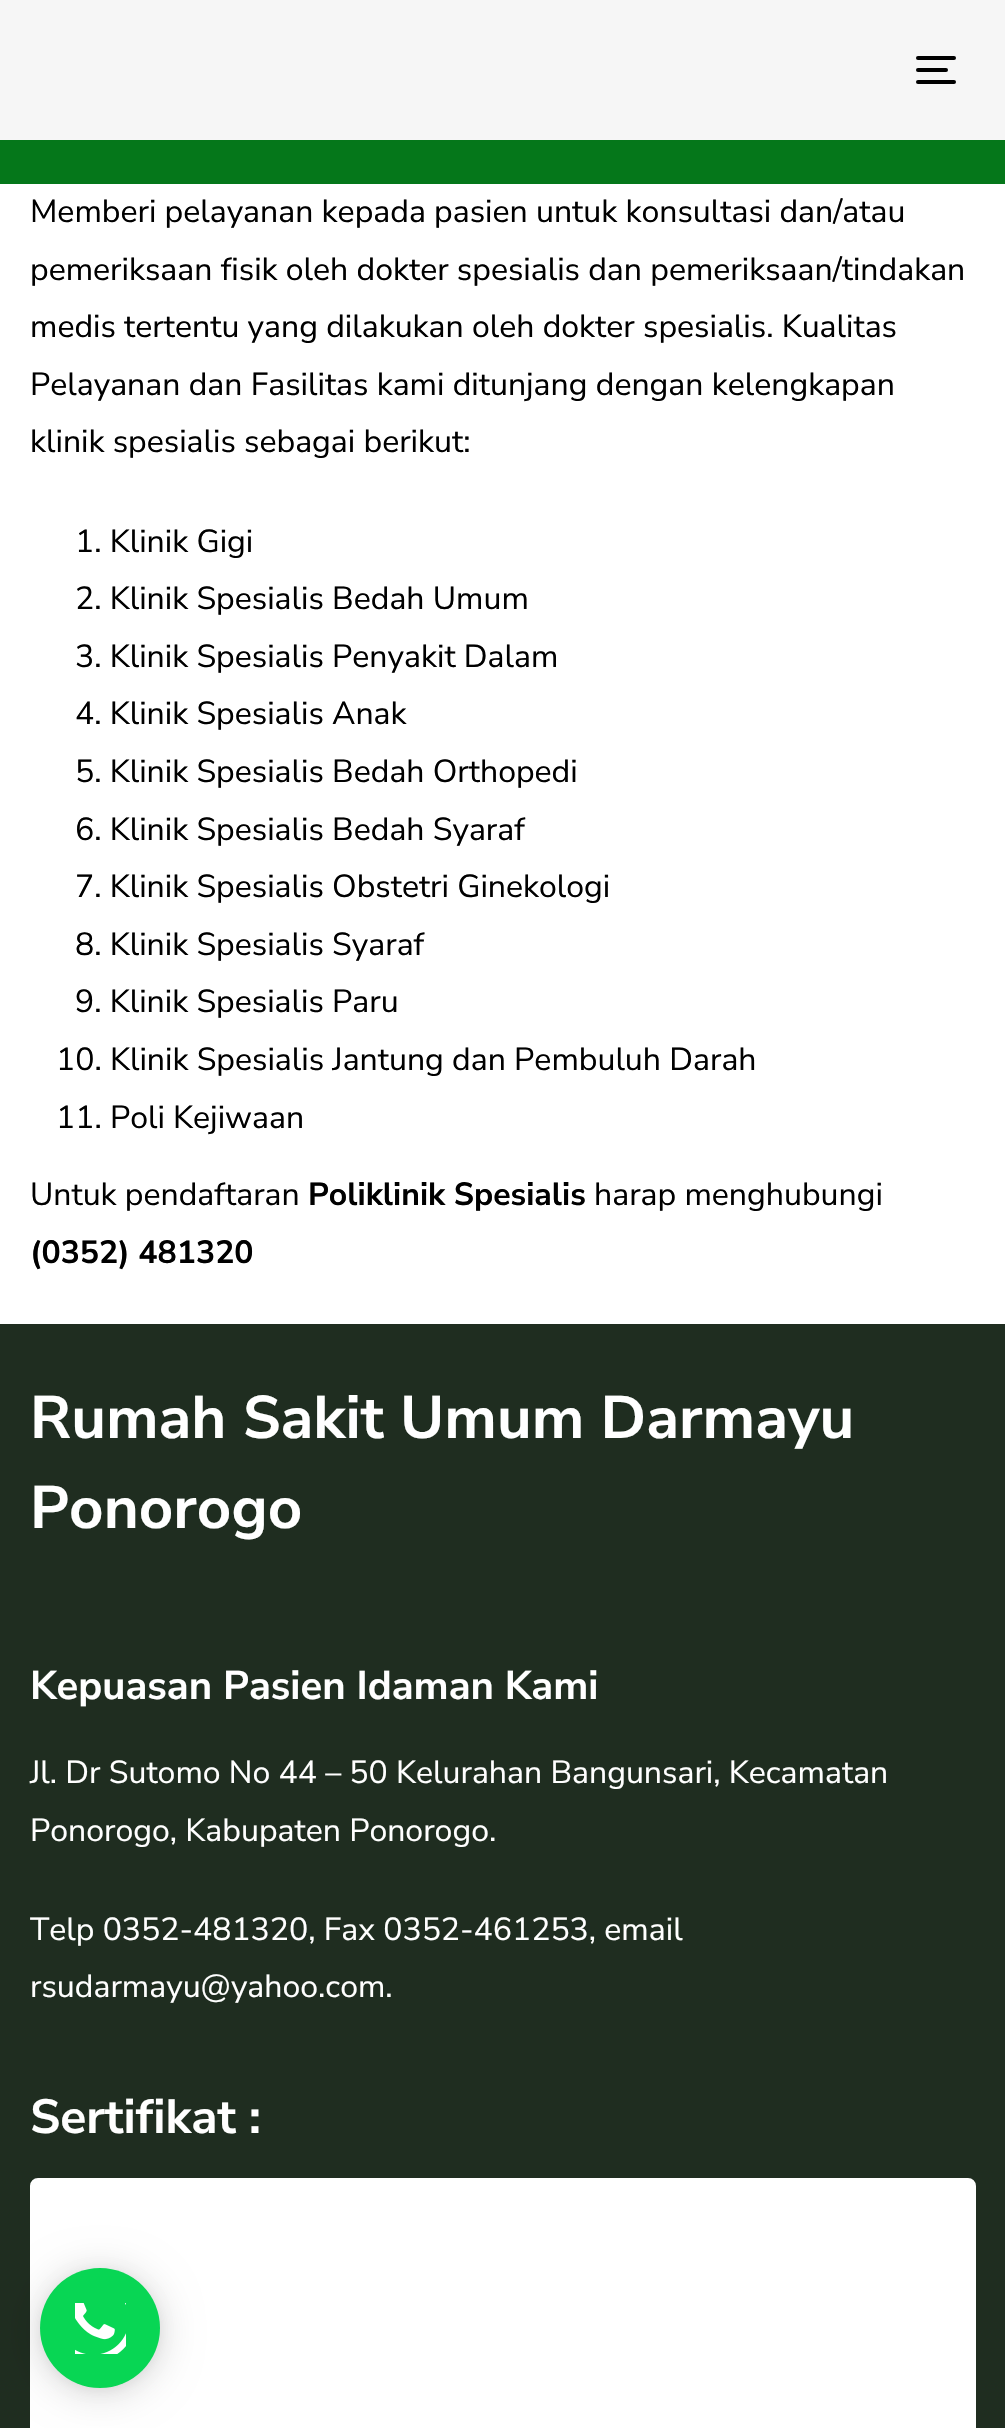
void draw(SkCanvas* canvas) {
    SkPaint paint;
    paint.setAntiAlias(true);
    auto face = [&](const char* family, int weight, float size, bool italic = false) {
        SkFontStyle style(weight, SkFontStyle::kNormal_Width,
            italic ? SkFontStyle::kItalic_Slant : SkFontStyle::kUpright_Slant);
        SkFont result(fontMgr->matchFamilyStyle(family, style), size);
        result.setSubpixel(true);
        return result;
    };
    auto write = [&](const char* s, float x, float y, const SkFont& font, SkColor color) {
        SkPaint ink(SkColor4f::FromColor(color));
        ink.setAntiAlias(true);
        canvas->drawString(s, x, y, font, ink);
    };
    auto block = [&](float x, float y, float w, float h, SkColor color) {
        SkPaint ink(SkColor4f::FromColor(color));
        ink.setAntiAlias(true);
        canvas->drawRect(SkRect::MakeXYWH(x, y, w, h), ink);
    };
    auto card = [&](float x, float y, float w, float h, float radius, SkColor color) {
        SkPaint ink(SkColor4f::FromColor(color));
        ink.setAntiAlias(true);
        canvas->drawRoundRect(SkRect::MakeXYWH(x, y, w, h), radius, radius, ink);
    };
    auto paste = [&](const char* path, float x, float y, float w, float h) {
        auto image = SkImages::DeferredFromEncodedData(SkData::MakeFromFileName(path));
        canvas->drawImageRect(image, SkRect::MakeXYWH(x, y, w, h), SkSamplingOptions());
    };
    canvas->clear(SK_ColorWHITE);
    block(0, 140, 1005, 44, SkColorSetRGB(5, 119, 26));
    block(0, 0, 1005, 140, SkColorSetRGB(246, 246, 246));
    card(916, 56, 40, 4, 2, SK_ColorBLACK);
    card(916, 68, 32, 4, 2, SK_ColorBLACK);
    card(916, 80, 40, 4, 2, SK_ColorBLACK);
    auto kFont1 = face("Nunito Sans", 400, 32);
    write("Memberi pelayanan kepada pasien untuk konsultasi dan/atau", 30, 222, kFont1, SK_ColorBLACK);
    write("pemeriksaan fisik oleh dokter spesialis dan pemeriksaan/tindakan", 30, 280, kFont1, SK_ColorBLACK);
    write("medis tertentu yang dilakukan oleh dokter spesialis. Kualitas", 30, 337, kFont1, SK_ColorBLACK);
    write("Pelayanan dan Fasilitas kami ditunjang dengan kelengkapan", 30, 395, kFont1, SK_ColorBLACK);
    write("klinik spesialis sebagai berikut:", 30, 452, kFont1, SK_ColorBLACK);
    write("1. Klinik Gigi", 75, 552, kFont1, SK_ColorBLACK);
    write("2. Klinik Spesialis Bedah Umum", 75, 609, kFont1, SK_ColorBLACK);
    write("3. Klinik Spesialis Penyakit Dalam", 75, 667, kFont1, SK_ColorBLACK);
    write("4. Klinik Spesialis Anak", 75, 724, kFont1, SK_ColorBLACK);
    write("5. Klinik Spesialis Bedah Orthopedi", 75, 782, kFont1, SK_ColorBLACK);
    write("6. Klinik Spesialis Bedah Syaraf", 75, 840, kFont1, SK_ColorBLACK);
    write("7. Klinik Spesialis Obstetri Ginekologi", 75, 897, kFont1, SK_ColorBLACK);
    write("8. Klinik Spesialis Syaraf", 75, 955, kFont1, SK_ColorBLACK);
    write("9. Klinik Spesialis Paru", 75, 1012, kFont1, SK_ColorBLACK);
    write("10. Klinik Spesialis Jantung dan Pembuluh Darah", 56, 1070, kFont1, SK_ColorBLACK);
    write("11. Poli Kejiwaan", 56, 1128, kFont1, SK_ColorBLACK);
    write("Untuk pendaftaran", 30, 1205, kFont1, SK_ColorBLACK);
    auto kFont2 = face("Nunito Sans", 700, 32);
    write("Poliklinik Spesialis", 308, 1205, kFont2, SK_ColorBLACK);
    write("harap menghubungi", 594, 1205, kFont1, SK_ColorBLACK);
    write("(0352) 481320", 30, 1263, kFont2, SK_ColorBLACK);
    block(0, 1324, 1005, 1104, SkColorSetRGB(31, 45, 32));
    auto kFont3 = face("Nunito Sans", 700, 60);
    write("Rumah Sakit Umum Darmayu", 30, 1438, kFont3, SK_ColorWHITE);
    write("Ponorogo", 30, 1528, kFont3, SK_ColorWHITE);
    auto kFont4 = face("Nunito Sans", 700, 40);
    write("Kepuasan Pasien Idaman Kami", 30, 1699, kFont4, SK_ColorWHITE);
    write("Jl. Dr Sutomo No 44 – 50 Kelurahan Bangunsari, Kecamatan", 30, 1783, kFont1, SK_ColorWHITE);
    write("Ponorogo, Kabupaten Ponorogo.", 30, 1841, kFont1, SK_ColorWHITE);
    write("Telp 0352-481320, Fax 0352-461253, email", 30, 1940, kFont1, SK_ColorWHITE);
    write("rsudarmayu@yahoo.com.", 30, 1997, kFont1, SK_ColorWHITE);
    auto kFont5 = face("Nunito Sans", 700, 48);
    write("Sertifikat :", 30, 2133, kFont5, SK_ColorWHITE);
    paint.setColor(SK_ColorWHITE);
    canvas->drawRoundRect(SkRect::MakeXYWH(34, 2182, 938, 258), 4, 4, paint);
    paint.setStyle(SkPaint::kStroke_Style);
    paint.setStrokeWidth(8);
    canvas->drawRoundRect(SkRect::MakeXYWH(34, 2182, 938, 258), 4, 4, paint);
    paint.setStyle(SkPaint::kFill_Style);
    paint.setColor(SkColorSetARGB(41, 0, 0, 0));
    paint.setMaskFilter(SkMaskFilter::MakeBlur(kNormal_SkBlurStyle, 20));
    canvas->drawRoundRect(SkRect::MakeXYWH(40, 2272, 120, 120), 60, 60, paint);
    paint.setMaskFilter(nullptr);
    paint.setColor(SkColorSetARGB(15, 0, 0, 0));
    paint.setMaskFilter(SkMaskFilter::MakeBlur(kNormal_SkBlurStyle, 6));
    canvas->drawRoundRect(SkRect::MakeXYWH(40, 2270, 120, 120), 60, 60, paint);
    paint.setMaskFilter(nullptr);
    paint.setColor(SkColorSetRGB(8, 214, 84));
    canvas->drawCircle(100, 2328, 60, paint);
    paste("pic1.png", 75, 2303, 51, 51);
}
